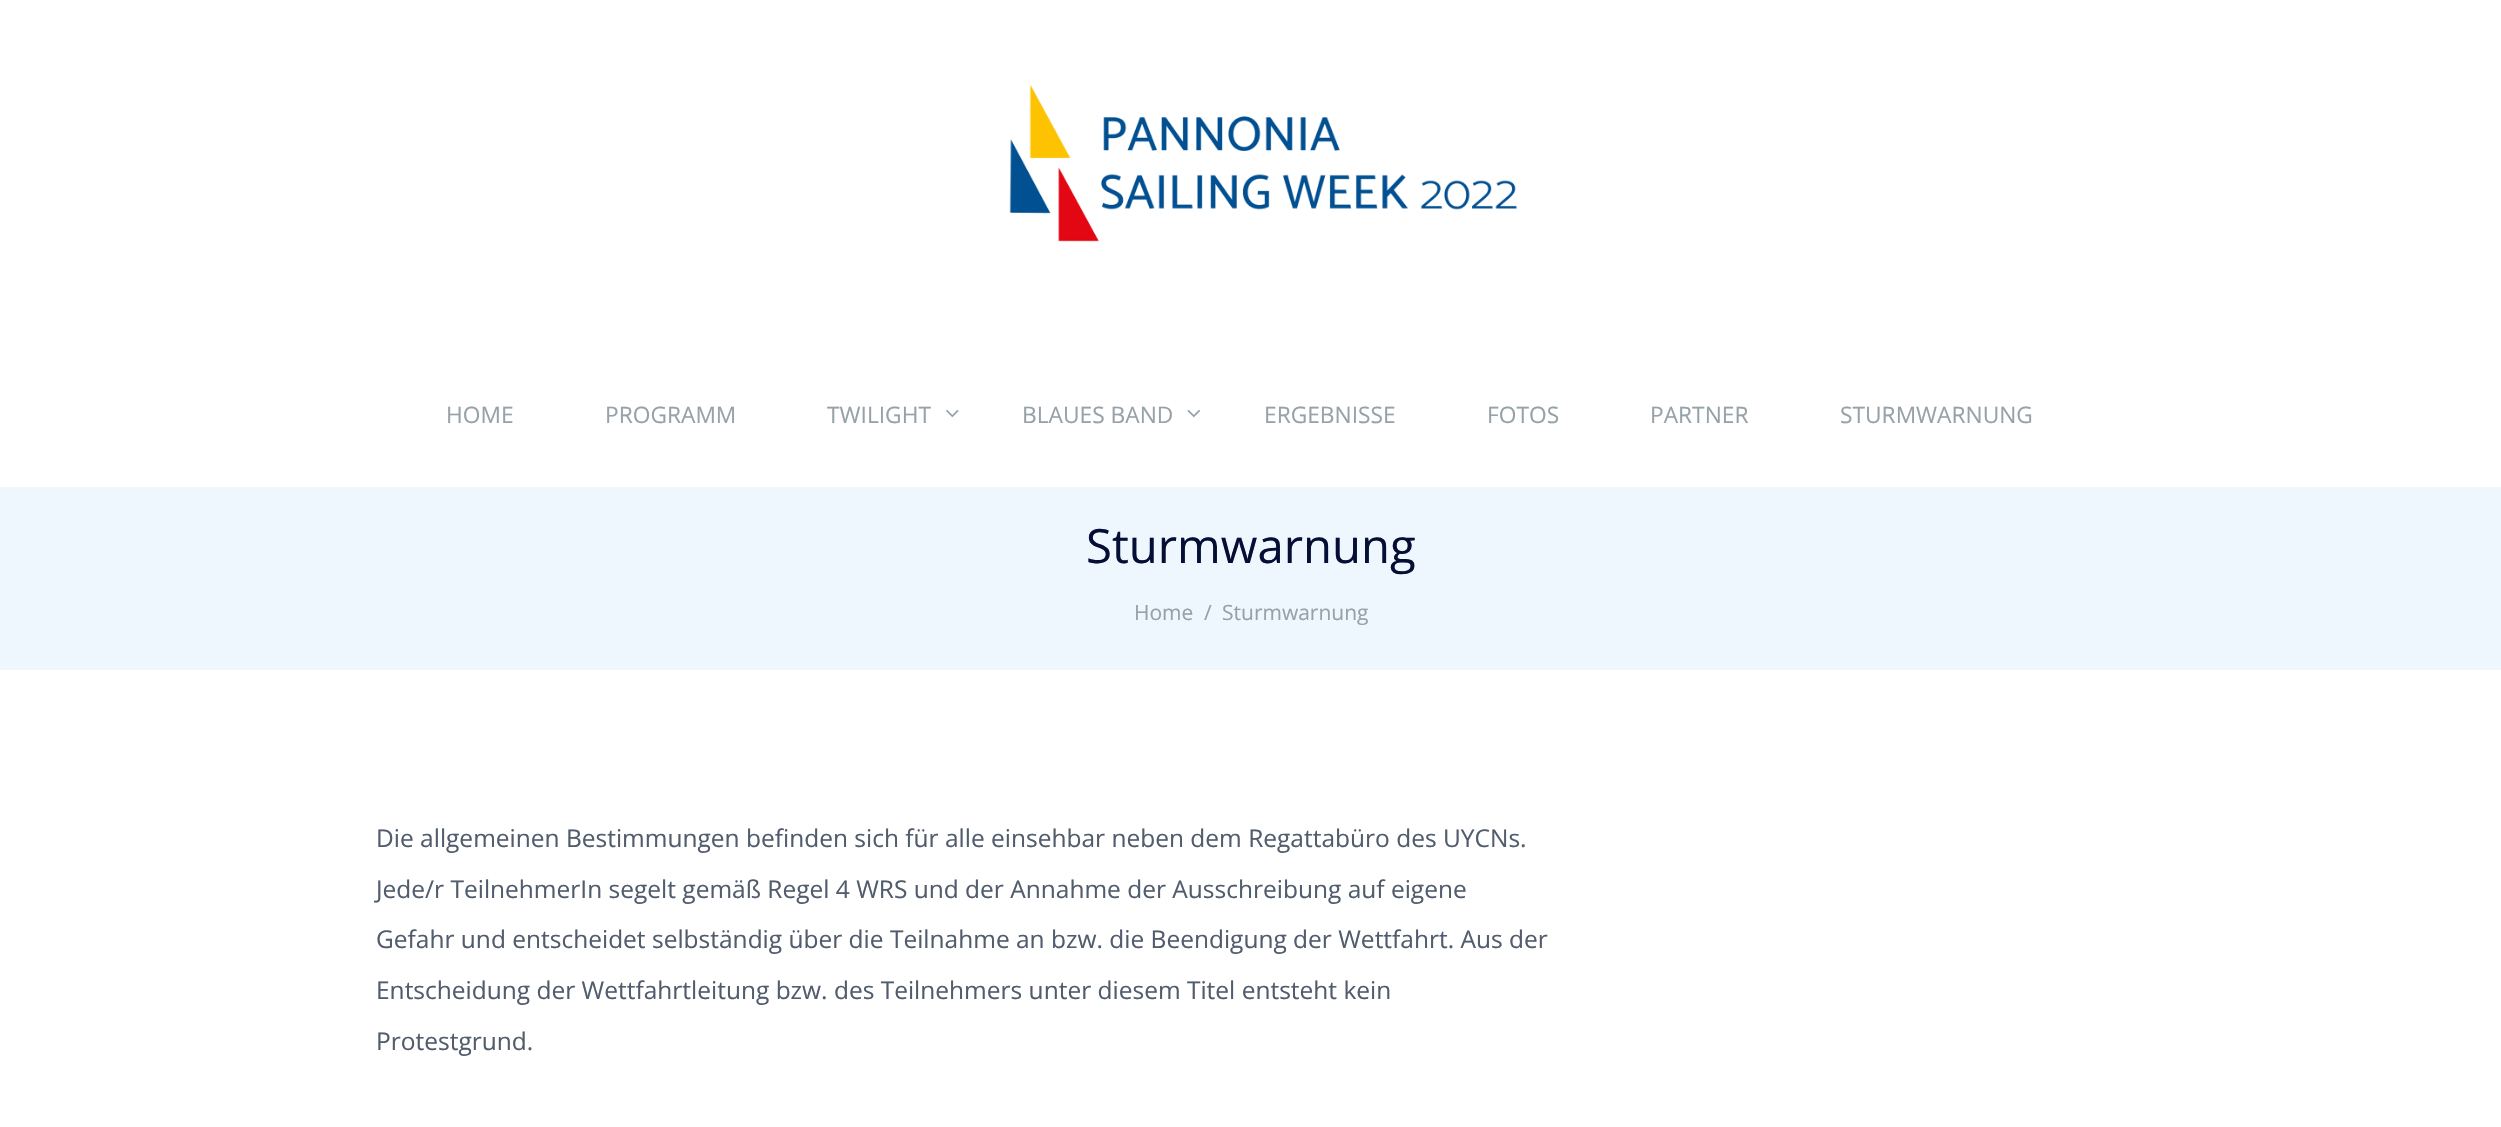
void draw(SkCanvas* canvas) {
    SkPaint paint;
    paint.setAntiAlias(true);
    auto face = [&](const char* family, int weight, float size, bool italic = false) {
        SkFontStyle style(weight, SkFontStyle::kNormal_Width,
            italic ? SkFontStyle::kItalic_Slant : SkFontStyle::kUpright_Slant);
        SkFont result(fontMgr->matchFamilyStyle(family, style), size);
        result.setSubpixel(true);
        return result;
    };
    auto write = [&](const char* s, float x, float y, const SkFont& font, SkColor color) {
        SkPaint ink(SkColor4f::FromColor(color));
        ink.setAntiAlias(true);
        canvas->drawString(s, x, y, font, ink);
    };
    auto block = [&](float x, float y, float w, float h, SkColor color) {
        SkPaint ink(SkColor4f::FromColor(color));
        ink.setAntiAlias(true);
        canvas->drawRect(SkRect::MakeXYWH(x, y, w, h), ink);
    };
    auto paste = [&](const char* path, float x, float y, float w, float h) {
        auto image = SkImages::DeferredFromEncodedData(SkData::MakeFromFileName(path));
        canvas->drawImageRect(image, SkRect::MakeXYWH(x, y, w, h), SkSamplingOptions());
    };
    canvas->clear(SK_ColorWHITE);
    paste("pic1.png", 1009, 84, 509, 158);
    auto kFont1 = face("Open Sans", 400, 22.75f);
    write("HOME", 446, 423, kFont1, SkColorSetRGB(150, 161, 168));
    write("PROGRAMM", 605, 423, kFont1, SkColorSetRGB(150, 161, 168));
    write("TWILIGHT", 827, 423, kFont1, SkColorSetRGB(150, 161, 168));
    paste("pic2.png", 946, 409, 13, 9);
    write("BLAUES BAND", 1022, 423, kFont1, SkColorSetRGB(150, 161, 168));
    paste("pic3.png", 1187, 409, 14, 9);
    write("ERGEBNISSE", 1264, 423, kFont1, SkColorSetRGB(150, 161, 168));
    write("FOTOS", 1487, 423, kFont1, SkColorSetRGB(150, 161, 168));
    write("PARTNER", 1650, 423, kFont1, SkColorSetRGB(150, 161, 168));
    write("STURMWARNUNG", 1840, 423, kFont1, SkColorSetRGB(150, 161, 168));
    block(0, 487, 2501, 183, SkColorSetRGB(238, 247, 253));
    auto kFont2 = face("Open Sans", 400, 47.25f);
    write("Sturmwarnung", 1086, 563, kFont2, SkColorSetRGB(5, 15, 54));
    auto kFont3 = face("Open Sans", 400, 21);
    write("Home", 1134, 620, kFont3, SkColorSetRGB(150, 161, 168));
    write("/", 1204, 620, kFont3, SkColorSetRGB(150, 161, 168));
    write("Sturmwarnung", 1222, 620, kFont3, SkColorSetRGB(150, 161, 168));
    auto kFont4 = face("Open Sans", 400, 24.5f);
    write("Die allgemeinen Bestimmungen befinden sich für alle einsehbar neben dem Regattabüro des UYCNs.", 376, 847, kFont4, SkColorSetRGB(81, 92, 109));
    write("Jede/r TeilnehmerIn segelt gemäß Regel 4 WRS und der Annahme der Ausschreibung auf eigene", 376, 898, kFont4, SkColorSetRGB(81, 92, 109));
    write("Gefahr und entscheidet selbständig über die Teilnahme an bzw. die Beendigung der Wettfahrt. Aus der", 376, 948, kFont4, SkColorSetRGB(81, 92, 109));
    write("Entscheidung der Wettfahrtleitung bzw. des Teilnehmers unter diesem Titel entsteht kein", 376, 999, kFont4, SkColorSetRGB(81, 92, 109));
    write("Protestgrund.", 376, 1050, kFont4, SkColorSetRGB(81, 92, 109));
}
